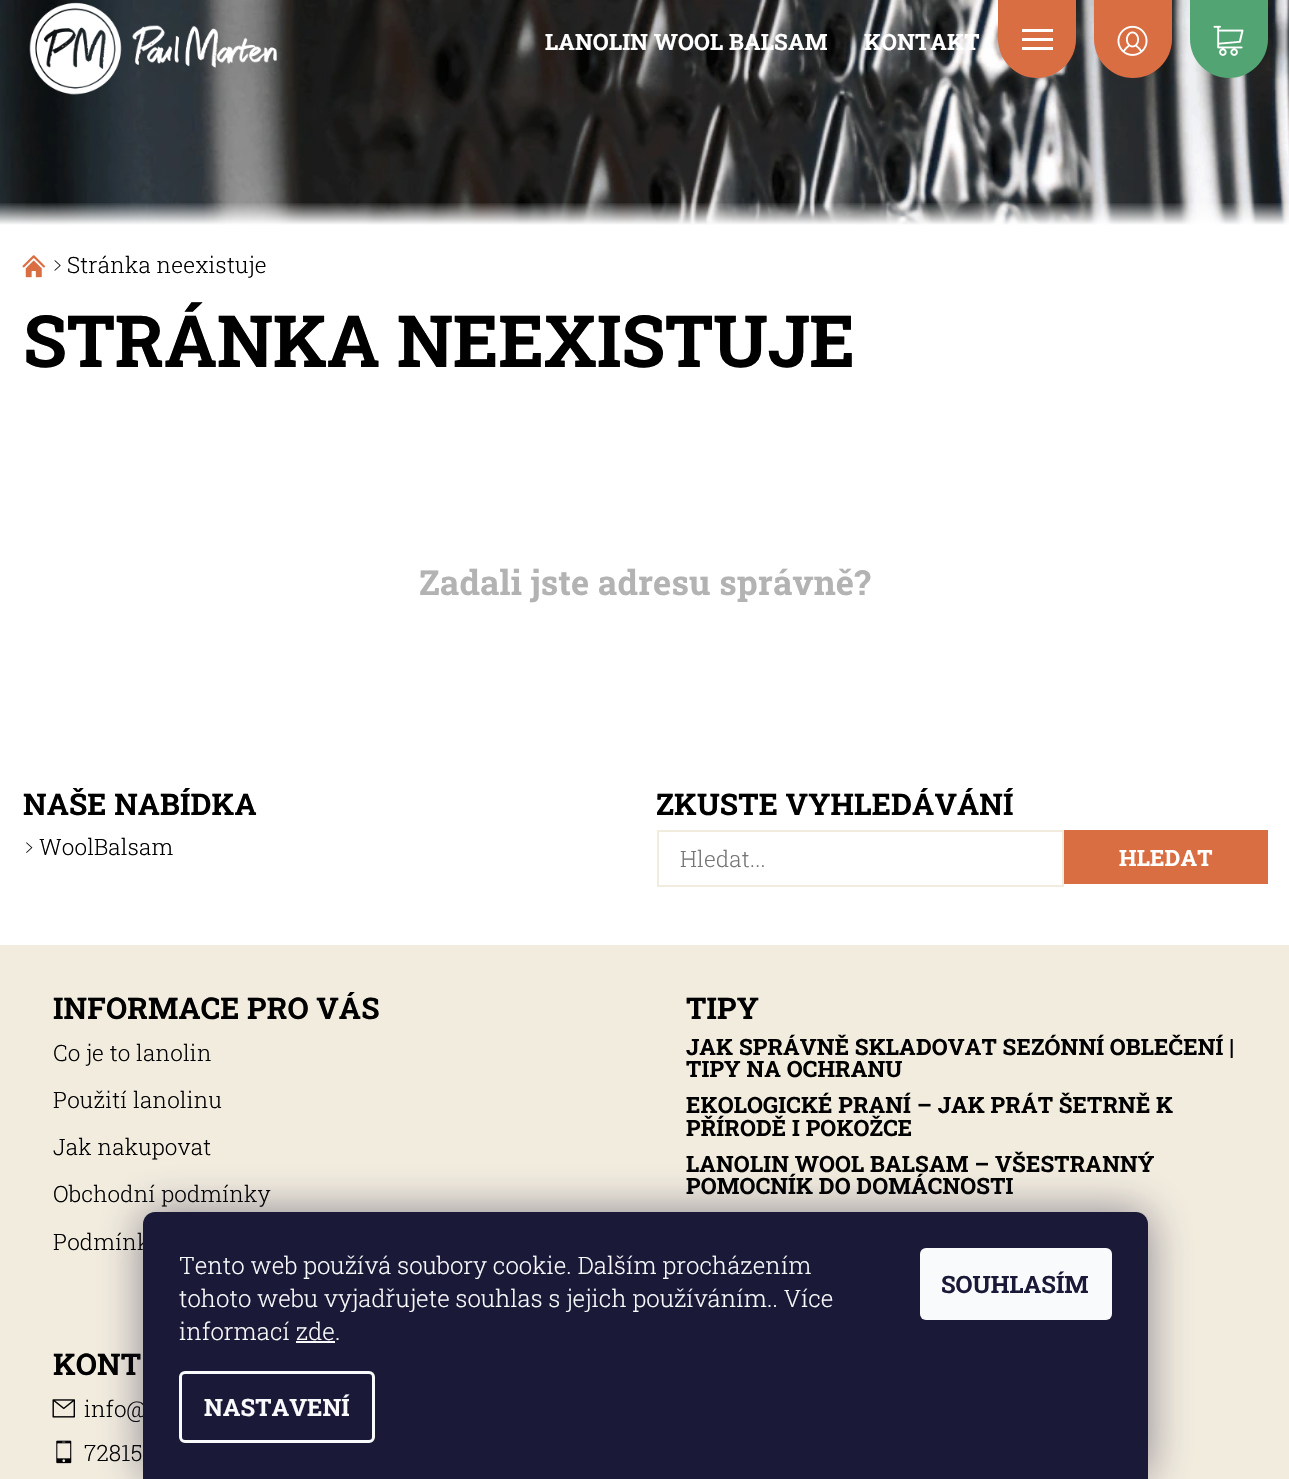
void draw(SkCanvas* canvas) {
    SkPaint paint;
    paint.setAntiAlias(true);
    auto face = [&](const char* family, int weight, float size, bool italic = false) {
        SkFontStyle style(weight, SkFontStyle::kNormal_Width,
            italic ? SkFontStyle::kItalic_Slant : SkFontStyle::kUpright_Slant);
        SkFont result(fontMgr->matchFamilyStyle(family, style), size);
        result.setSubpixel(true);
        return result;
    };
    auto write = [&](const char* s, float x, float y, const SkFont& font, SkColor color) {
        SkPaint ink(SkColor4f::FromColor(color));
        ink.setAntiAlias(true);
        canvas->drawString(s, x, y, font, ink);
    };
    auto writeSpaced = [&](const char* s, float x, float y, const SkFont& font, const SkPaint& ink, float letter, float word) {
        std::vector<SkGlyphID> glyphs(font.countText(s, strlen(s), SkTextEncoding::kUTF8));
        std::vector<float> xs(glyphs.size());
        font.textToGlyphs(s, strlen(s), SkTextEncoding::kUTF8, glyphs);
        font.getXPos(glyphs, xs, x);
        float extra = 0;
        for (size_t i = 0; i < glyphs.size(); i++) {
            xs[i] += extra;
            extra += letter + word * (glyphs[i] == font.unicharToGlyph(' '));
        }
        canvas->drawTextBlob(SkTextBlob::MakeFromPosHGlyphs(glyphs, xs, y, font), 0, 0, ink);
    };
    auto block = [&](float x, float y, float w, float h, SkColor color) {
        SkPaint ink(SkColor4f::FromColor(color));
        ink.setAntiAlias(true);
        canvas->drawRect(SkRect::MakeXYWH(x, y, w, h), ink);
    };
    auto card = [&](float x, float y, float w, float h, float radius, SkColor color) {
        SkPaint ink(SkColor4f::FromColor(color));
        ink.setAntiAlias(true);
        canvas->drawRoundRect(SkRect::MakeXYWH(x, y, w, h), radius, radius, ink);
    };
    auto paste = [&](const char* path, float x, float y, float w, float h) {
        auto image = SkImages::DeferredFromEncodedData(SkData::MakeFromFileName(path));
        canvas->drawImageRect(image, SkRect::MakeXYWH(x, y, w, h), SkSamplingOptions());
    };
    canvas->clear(SK_ColorWHITE);
    paste("pic1.png", 0, 0, 1289, 225);
    paste("pic2.png", 29, 2, 249, 93);
    auto kFont1 = face("Roboto Slab", 700, 22.5f);
    paint.setColor(SK_ColorWHITE);
    writeSpaced("LANOLIN WOOL BALSAM", 545, 50, kFont1, paint, 0.15f, 0);
    writeSpaced("KONTAKT", 864, 50, kFont1, paint, 0.15f, 0);
    paint.setColor(SkColorSetRGB(218, 110, 67));
    canvas->drawPath(SkPathBuilder().moveTo(998, 0).lineTo(1076, 0).lineTo(1076, 39).cubicTo(1076, 60.5f, 1058.5f, 78, 1037, 78).cubicTo(1015.5f, 78, 998, 60.5f, 998, 39).close().detach(), paint);
    block(1022, 29, 31, 3, SK_ColorWHITE);
    block(1022, 38, 31, 3, SK_ColorWHITE);
    block(1022, 47, 31, 3, SK_ColorWHITE);
    canvas->drawPath(SkPathBuilder().moveTo(1094, 0).lineTo(1172, 0).lineTo(1172, 39).cubicTo(1172, 60.5f, 1154.5f, 78, 1133, 78).cubicTo(1111.5f, 78, 1094, 60.5f, 1094, 39).close().detach(), paint);
    paste("pic3.png", 1117, 25, 31, 31);
    paint.setColor(SkColorSetRGB(82, 165, 115));
    canvas->drawPath(SkPathBuilder().moveTo(1190, 0).lineTo(1268, 0).lineTo(1268, 39).cubicTo(1268, 60.5f, 1250.5f, 78, 1229, 78).cubicTo(1207.5f, 78, 1190, 60.5f, 1190, 39).close().detach(), paint);
    paste("pic4.png", 1213, 25, 31, 31);
    paste("pic5.png", 22, 255, 23, 23);
    paste("pic6.png", 54, 260, 7, 11);
    auto kFont2 = face("Roboto Slab", 300, 22.5f);
    paint.setColor(SK_ColorBLACK);
    writeSpaced("Stránka neexistuje", 67, 273, kFont2, paint, 0.15f, 0);
    auto kFont3 = face("Roboto Slab", 700, 72);
    writeSpaced("STRÁNKA NEEXISTUJE", 23, 367, kFont3, paint, -0.4f, 0);
    auto kFont4 = face("Roboto Slab", 700, 34.5f);
    paint.setColor(SkColorSetRGB(179, 179, 179));
    writeSpaced("Zadali jste adresu správně?", 419, 595, kFont4, paint, 0.15f, 0);
    auto kFont5 = face("Roboto Slab", 700, 30);
    paint.setColor(SK_ColorBLACK);
    writeSpaced("NAŠE NABÍDKA", 23, 815, kFont5, paint, 0.15f, 0);
    paste("pic7.png", 26, 842, 7, 11);
    writeSpaced("WoolBalsam", 39, 855, kFont2, paint, 0.15f, 0);
    writeSpaced("ZKUSTE VYHLEDÁVÁNÍ", 656, 815, kFont5, paint, 0.15f, 0);
    paint.setStyle(SkPaint::kStroke_Style);
    paint.setStrokeWidth(2);
    paint.setColor(SkColorSetRGB(242, 236, 223));
    canvas->drawRect(SkRect::MakeXYWH(658, 831, 405, 55), paint);
    paint.setStyle(SkPaint::kFill_Style);
    paint.setColor(SkColorSetRGB(117, 117, 117));
    writeSpaced("Hledat...", 680, 867, kFont2, paint, 0.15f, 0);
    block(1064, 830, 204, 54, SkColorSetRGB(218, 110, 67));
    paint.setColor(SK_ColorWHITE);
    writeSpaced("HLEDAT", 1119, 866, kFont1, paint, 0.15f, 0);
    block(0, 945, 1289, 534, SkColorSetRGB(242, 236, 223));
    paint.setColor(SK_ColorBLACK);
    writeSpaced("INFORMACE PRO VÁS", 53, 1019, kFont5, paint, 0.15f, 0);
    writeSpaced("Co je to lanolin", 53, 1061, kFont2, paint, 0.15f, 0);
    writeSpaced("Použití lanolinu", 53, 1108, kFont2, paint, 0.15f, 0);
    writeSpaced("Jak nakupovat", 53, 1155, kFont2, paint, 0.15f, 0);
    writeSpaced("Obchodní podmínky", 53, 1202, kFont2, paint, 0.15f, 0);
    writeSpaced("Podmínk", 53, 1250, kFont2, paint, 0.15f, 0);
    writeSpaced("TIPY", 686, 1019, kFont5, paint, 0.15f, 0);
    writeSpaced("JAK SPRÁVNĚ SKLADOVAT SEZÓNNÍ OBLEČENÍ |", 686, 1055, kFont1, paint, 0.15f, 0);
    writeSpaced("TIPY NA OCHRANU", 686, 1077, kFont1, paint, 0.15f, 0);
    writeSpaced("EKOLOGICKÉ PRANÍ – JAK PRÁT ŠETRNĚ K", 686, 1113, kFont1, paint, 0.15f, 0);
    writeSpaced("PŘÍRODĚ I POKOŽCE", 686, 1136, kFont1, paint, 0.15f, 0);
    writeSpaced("LANOLIN WOOL BALSAM – VŠESTRANNÝ", 686, 1172, kFont1, paint, 0.15f, 0);
    writeSpaced("POMOCNÍK DO DOMÁCNOSTI", 686, 1194, kFont1, paint, 0.15f, 0);
    writeSpaced("KONT", 53, 1375, kFont5, paint, 0.15f, 0);
    paste("pic8.png", 52, 1399, 23, 19);
    writeSpaced("info@", 84, 1417, kFont2, paint, 0.15f, 0);
    paste("pic9.png", 56, 1440, 16, 24);
    writeSpaced("72815", 84, 1461, kFont2, paint, 0.15f, 0);
    paint.setColor(SkColorSetARGB(128, 27, 25, 57));
    paint.setMaskFilter(SkMaskFilter::MakeBlur(kNormal_SkBlurStyle, 22.5f));
    canvas->drawRoundRect(SkRect::MakeXYWH(143, 1212, 1005, 267), 12, 12, paint);
    paint.setMaskFilter(nullptr);
    paint.setColor(SkColorSetRGB(26, 25, 55));
    canvas->drawPath(SkPathBuilder().moveTo(155, 1212).lineTo(1136, 1212).cubicTo(1142.5f, 1212, 1148, 1217.5f, 1148, 1224).lineTo(1148, 1479).lineTo(143, 1479).lineTo(143, 1224).cubicTo(143, 1217.5f, 148.5f, 1212, 155, 1212).close().detach(), paint);
    auto kFont6 = face("Roboto Slab", 300, 24);
    write("Tento web používá soubory cookie. Dalším procházením", 179, 1274, kFont6, SkColorSetRGB(248, 250, 251));
    write("tohoto webu vyjadřujete souhlas s jejich používáním.. Více", 179, 1307, kFont6, SkColorSetRGB(248, 250, 251));
    write("informací zde.", 179, 1340, kFont6, SkColorSetRGB(248, 250, 251));
    block(296, 1341, 39, 2, SkColorSetRGB(248, 250, 251));
    paint.setStyle(SkPaint::kStroke_Style);
    paint.setStrokeWidth(3);
    paint.setColor(SkColorSetRGB(248, 250, 251));
    canvas->drawRoundRect(SkRect::MakeXYWH(180.5f, 1372.5f, 193, 69), 4.5f, 4.5f, paint);
    auto kFont7 = face("Roboto Slab", 700, 24);
    write("NASTAVENÍ", 204, 1416, kFont7, SkColorSetRGB(248, 250, 251));
    card(920, 1248, 192, 72, 6, SkColorSetRGB(248, 250, 251));
    write("SOUHLASÍM", 941, 1293, kFont7, SkColorSetRGB(26, 25, 55));
}
